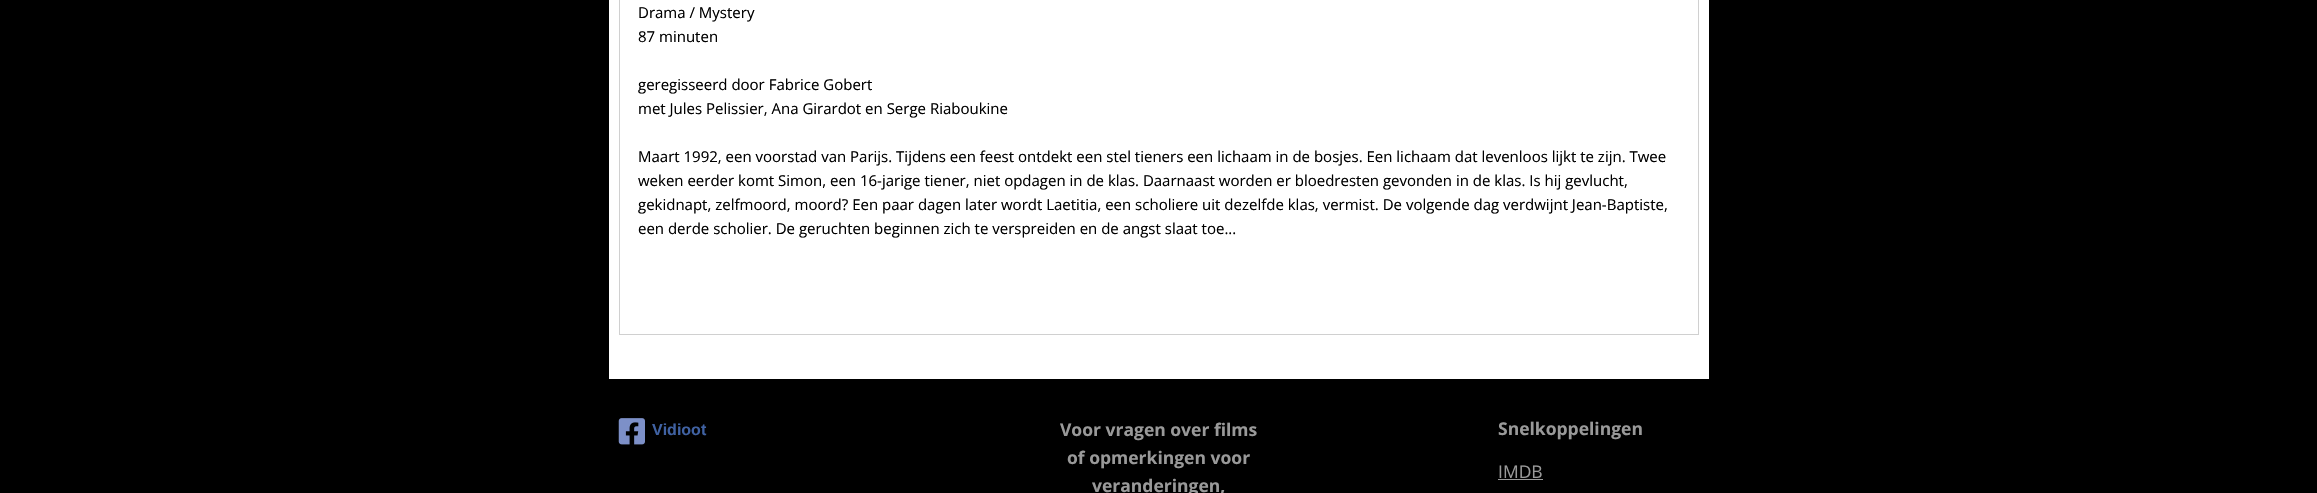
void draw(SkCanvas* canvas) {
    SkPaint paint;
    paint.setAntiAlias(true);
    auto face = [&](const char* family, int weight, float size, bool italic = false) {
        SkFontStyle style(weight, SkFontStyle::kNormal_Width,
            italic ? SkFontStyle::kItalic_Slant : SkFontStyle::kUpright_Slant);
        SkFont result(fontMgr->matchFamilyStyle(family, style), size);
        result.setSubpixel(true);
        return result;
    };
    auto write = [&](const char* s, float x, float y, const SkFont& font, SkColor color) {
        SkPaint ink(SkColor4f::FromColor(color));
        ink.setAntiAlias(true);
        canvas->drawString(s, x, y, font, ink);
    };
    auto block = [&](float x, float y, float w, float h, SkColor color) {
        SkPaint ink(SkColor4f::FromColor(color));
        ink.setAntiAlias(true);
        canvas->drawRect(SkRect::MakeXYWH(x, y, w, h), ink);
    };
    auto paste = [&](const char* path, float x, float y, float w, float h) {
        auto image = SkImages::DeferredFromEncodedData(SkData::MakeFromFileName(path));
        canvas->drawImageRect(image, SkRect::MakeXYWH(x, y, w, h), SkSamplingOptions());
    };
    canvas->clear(SK_ColorBLACK);
    block(609, 0, 1100, 379, SK_ColorWHITE);
    paint.setStyle(SkPaint::kStroke_Style);
    paint.setStrokeWidth(1);
    paint.setColor(SkColorSetRGB(208, 208, 208));
    canvas->drawRect(SkRect::MakeXYWH(619.5f, -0.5f, 1079, 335), paint);
    auto kFont1 = face("Open Sans", 400, 15);
    write("Drama / Mystery", 638, 18, kFont1, SK_ColorBLACK);
    write("87 minuten", 638, 42, kFont1, SK_ColorBLACK);
    write("geregisseerd door Fabrice Gobert", 638, 90, kFont1, SK_ColorBLACK);
    write("met Jules Pelissier, Ana Girardot en Serge Riaboukine", 638, 114, kFont1, SK_ColorBLACK);
    write("Maart 1992, een voorstad van Parijs. Tijdens een feest ontdekt een stel tieners een lichaam in de bosjes. Een lichaam dat levenloos lijkt te zijn. Twee", 638, 162, kFont1, SK_ColorBLACK);
    write("weken eerder komt Simon, een 16-jarige tiener, niet opdagen in de klas. Daarnaast worden er bloedresten gevonden in de klas. Is hij gevlucht,", 638, 186, kFont1, SK_ColorBLACK);
    write("gekidnapt, zelfmoord, moord? Een paar dagen later wordt Laetitia, een scholiere uit dezelfde klas, vermist. De volgende dag verdwijnt Jean-Baptiste,", 638, 210, kFont1, SK_ColorBLACK);
    write("een derde scholier. De geruchten beginnen zich te verspreiden en de angst slaat toe...", 638, 234, kFont1, SK_ColorBLACK);
    paste("pic1.png", 618, 418, 27, 27);
    auto kFont2 = face("Liberation Sans", 700, 16);
    write("Vidioot", 652, 435, kFont2, SkColorSetRGB(64, 98, 163));
    auto kFont3 = face("Open Sans", 700, 17.5f);
    write("Voor vragen over films", 1060, 436, kFont3, SkColorSetRGB(153, 153, 153));
    write("of opmerkingen voor", 1067, 464, kFont3, SkColorSetRGB(153, 153, 153));
    write("veranderingen,", 1092, 492, kFont3, SkColorSetRGB(153, 153, 153));
    write("Snelkoppelingen", 1498, 435, kFont3, SkColorSetRGB(153, 153, 153));
    auto kFont4 = face("Open Sans", 400, 17.5f);
    write("IMDB", 1498, 478, kFont4, SkColorSetRGB(153, 153, 153));
    block(1498, 479, 45, 1, SkColorSetRGB(153, 153, 153));
}
